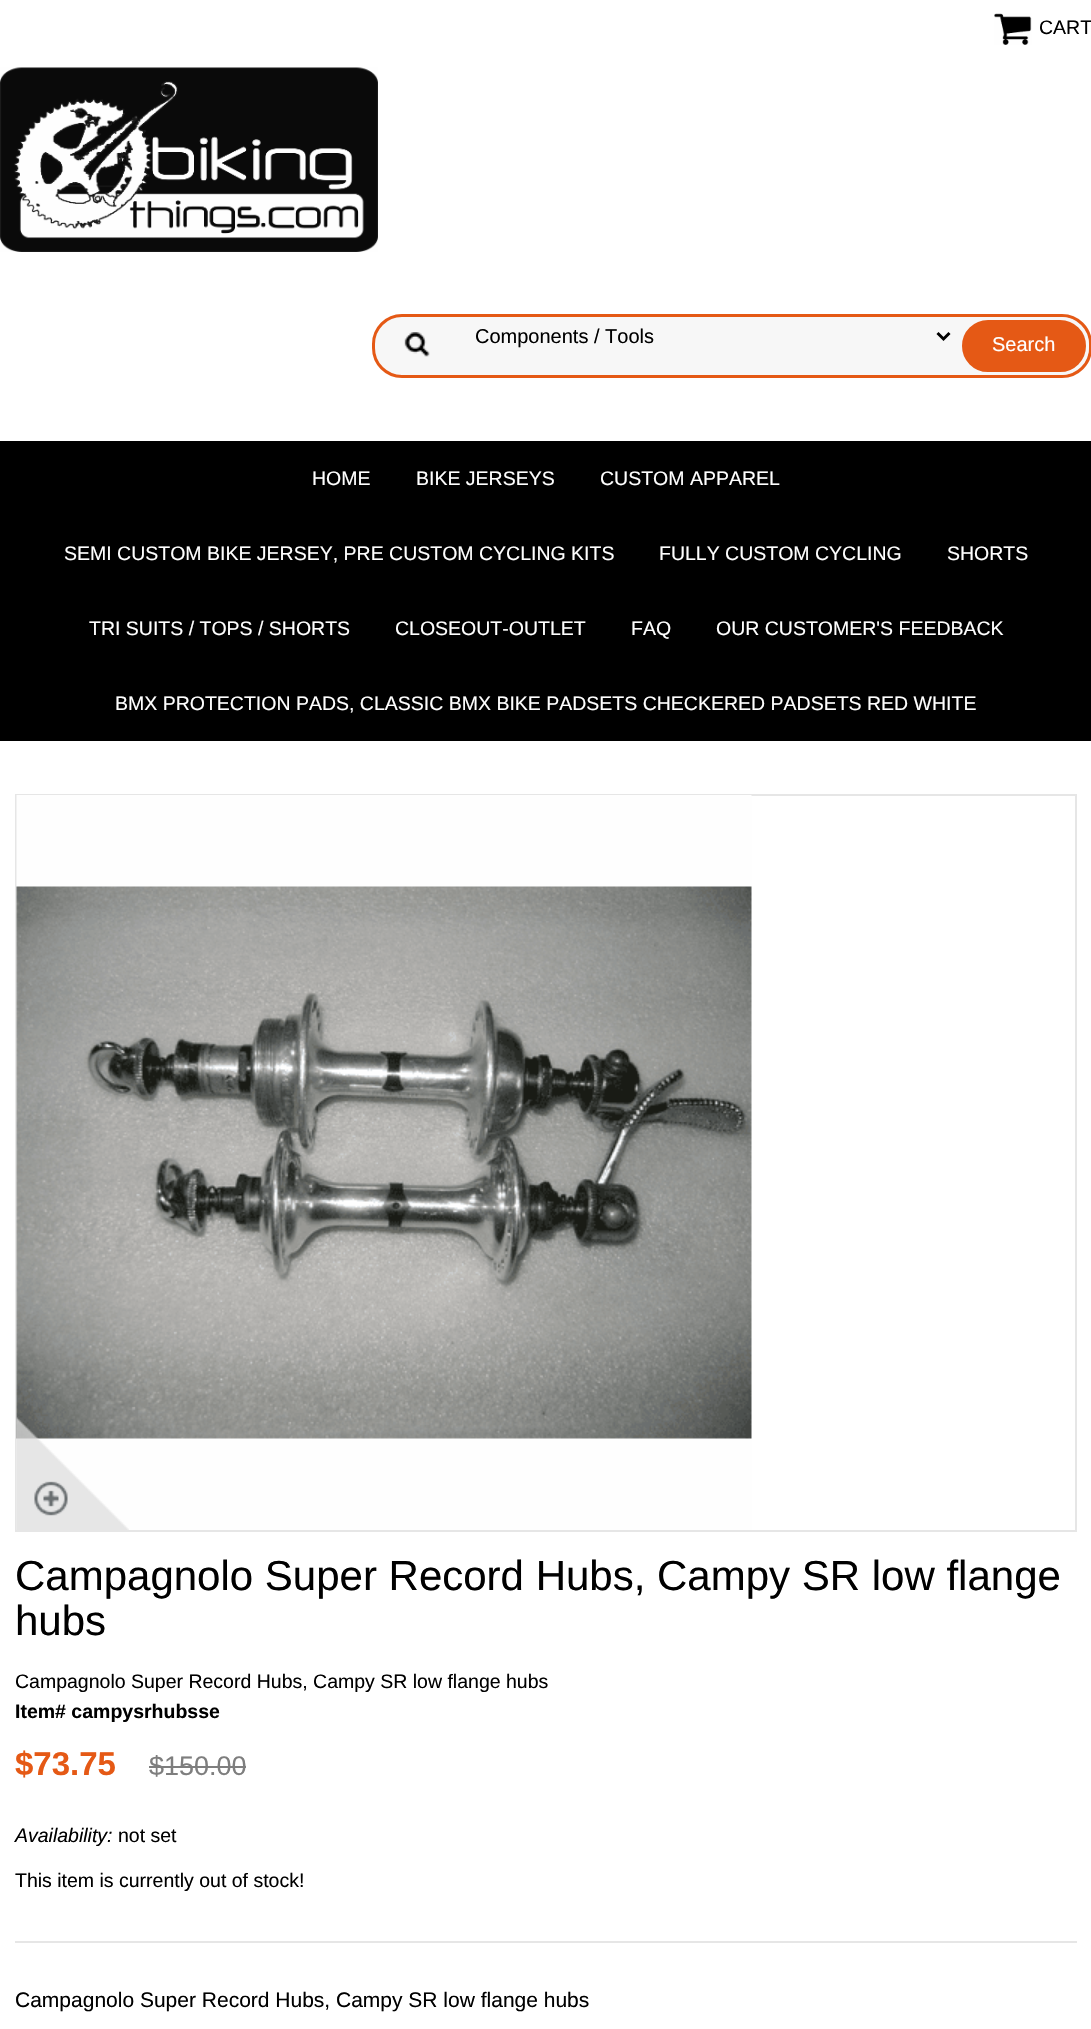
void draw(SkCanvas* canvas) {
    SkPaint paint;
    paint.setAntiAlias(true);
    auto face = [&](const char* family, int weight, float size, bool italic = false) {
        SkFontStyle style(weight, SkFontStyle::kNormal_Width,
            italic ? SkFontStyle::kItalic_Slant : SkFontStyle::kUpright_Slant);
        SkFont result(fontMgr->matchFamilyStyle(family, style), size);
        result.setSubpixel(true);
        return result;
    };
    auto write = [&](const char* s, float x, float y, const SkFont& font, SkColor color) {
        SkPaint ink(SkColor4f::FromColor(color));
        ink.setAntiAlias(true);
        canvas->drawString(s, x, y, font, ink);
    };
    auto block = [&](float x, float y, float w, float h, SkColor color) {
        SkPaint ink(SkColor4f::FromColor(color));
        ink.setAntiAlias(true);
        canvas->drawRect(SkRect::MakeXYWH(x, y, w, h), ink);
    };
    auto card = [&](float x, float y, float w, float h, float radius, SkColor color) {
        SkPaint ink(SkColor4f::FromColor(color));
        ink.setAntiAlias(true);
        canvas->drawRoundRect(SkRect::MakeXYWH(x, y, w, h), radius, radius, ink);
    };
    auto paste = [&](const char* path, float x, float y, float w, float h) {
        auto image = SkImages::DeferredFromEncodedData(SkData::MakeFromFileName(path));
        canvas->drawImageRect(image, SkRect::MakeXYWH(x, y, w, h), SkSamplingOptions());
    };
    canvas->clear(SK_ColorWHITE);
    paste("pic1.png", 994, 13, 38, 32);
    auto kFont1 = face("Liberation Sans", 400, 19.5f);
    write("CART", 1039, 34, kFont1, SK_ColorBLACK);
    paste("pic2.png", 0, 67, 378, 185);
    card(372, 314, 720, 64, 30, SkColorSetRGB(247, 247, 247));
    paste("pic3.png", 404, 332, 26, 25);
    paint.setStyle(SkPaint::kStroke_Style);
    paint.setStrokeWidth(3);
    paint.setColor(SkColorSetRGB(229, 89, 21));
    canvas->drawRoundRect(SkRect::MakeXYWH(373.5f, 315.5f, 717, 61), 28.5f, 28.5f, paint);
    paint.setColor(SK_ColorBLACK);
    canvas->drawPath(SkPathBuilder().moveTo(937.5f, 333).lineTo(943.5f, 339).lineTo(949.5f, 333).detach(), paint);
    auto kFont2 = face("Liberation Sans", 400, 20);
    write("Components / Tools", 475, 343, kFont2, SK_ColorBLACK);
    paint.setStyle(SkPaint::kFill_Style);
    paint.setColor(SkColorSetRGB(229, 89, 21));
    canvas->drawRoundRect(SkRect::MakeXYWH(960.5f, 318.5f, 127, 55), 27.5f, 27.5f, paint);
    paint.setStyle(SkPaint::kStroke_Style);
    paint.setColor(SkColorSetRGB(247, 247, 247));
    canvas->drawRoundRect(SkRect::MakeXYWH(960.5f, 318.5f, 127, 55), 27.5f, 27.5f, paint);
    write("Search", 992, 351, kFont2, SK_ColorWHITE);
    block(0, 441, 1091, 300, SK_ColorBLACK);
    write("HOME", 312, 485, kFont1, SK_ColorWHITE);
    write("BIKE JERSEYS", 416, 485, kFont1, SK_ColorWHITE);
    write("CUSTOM APPAREL", 600, 485, kFont1, SK_ColorWHITE);
    write("SEMI CUSTOM BIKE JERSEY, PRE CUSTOM CYCLING KITS", 64, 560, kFont1, SK_ColorWHITE);
    write("FULLY CUSTOM CYCLING", 659, 560, kFont1, SK_ColorWHITE);
    write("SHORTS", 947, 560, kFont1, SK_ColorWHITE);
    write("TRI SUITS / TOPS / SHORTS", 89, 635, kFont1, SK_ColorWHITE);
    write("CLOSEOUT-OUTLET", 395, 635, kFont1, SK_ColorWHITE);
    write("FAQ", 631, 635, kFont1, SK_ColorWHITE);
    write("OUR CUSTOMER'S FEEDBACK", 716, 635, kFont1, SK_ColorWHITE);
    write("BMX PROTECTION PADS, CLASSIC BMX BIKE PADSETS CHECKERED PADSETS RED WHITE", 115, 710, kFont1, SK_ColorWHITE);
    paint.setStrokeWidth(2);
    paint.setColor(SkColorSetRGB(230, 230, 230));
    canvas->drawRect(SkRect::MakeXYWH(16, 795, 1060, 736), paint);
    paste("pic4.png", 16, 795, 736, 735);
    paste("pic5.png", 16, 1417, 113, 113);
    auto kFont3 = face("Liberation Sans", 400, 42);
    write("Campagnolo Super Record Hubs, Campy SR low flange", 15, 1590, kFont3, SK_ColorBLACK);
    write("hubs", 15, 1635, kFont3, SK_ColorBLACK);
    write("Campagnolo Super Record Hubs, Campy SR low flange hubs", 15, 1688, kFont1, SK_ColorBLACK);
    auto kFont4 = face("Liberation Sans", 700, 19.5f);
    write("Item# campysrhubsse", 15, 1718, kFont4, SK_ColorBLACK);
    auto kFont5 = face("Liberation Sans", 700, 33);
    write("$73.75", 15, 1775, kFont5, SkColorSetRGB(229, 89, 21));
    auto kFont6 = face("Liberation Sans", 400, 27);
    write("$150.00", 149, 1775, kFont6, SkColorSetRGB(126, 126, 126));
    block(149, 1766, 97, 2, SkColorSetRGB(126, 126, 126));
    auto kFont7 = face("Liberation Sans", 400, 19.5f, true);
    write("Availability:", 15, 1842, kFont7, SK_ColorBLACK);
    write("not set", 118, 1842, kFont1, SK_ColorBLACK);
    write("This item is currently out of stock!", 15, 1887, kFont1, SK_ColorBLACK);
    block(15, 1941, 1062, 2, SkColorSetRGB(230, 230, 230));
    auto kFont8 = face("Liberation Sans", 400, 21);
    write("Campagnolo Super Record Hubs, Campy SR low flange hubs", 15, 2007, kFont8, SK_ColorBLACK);
}
